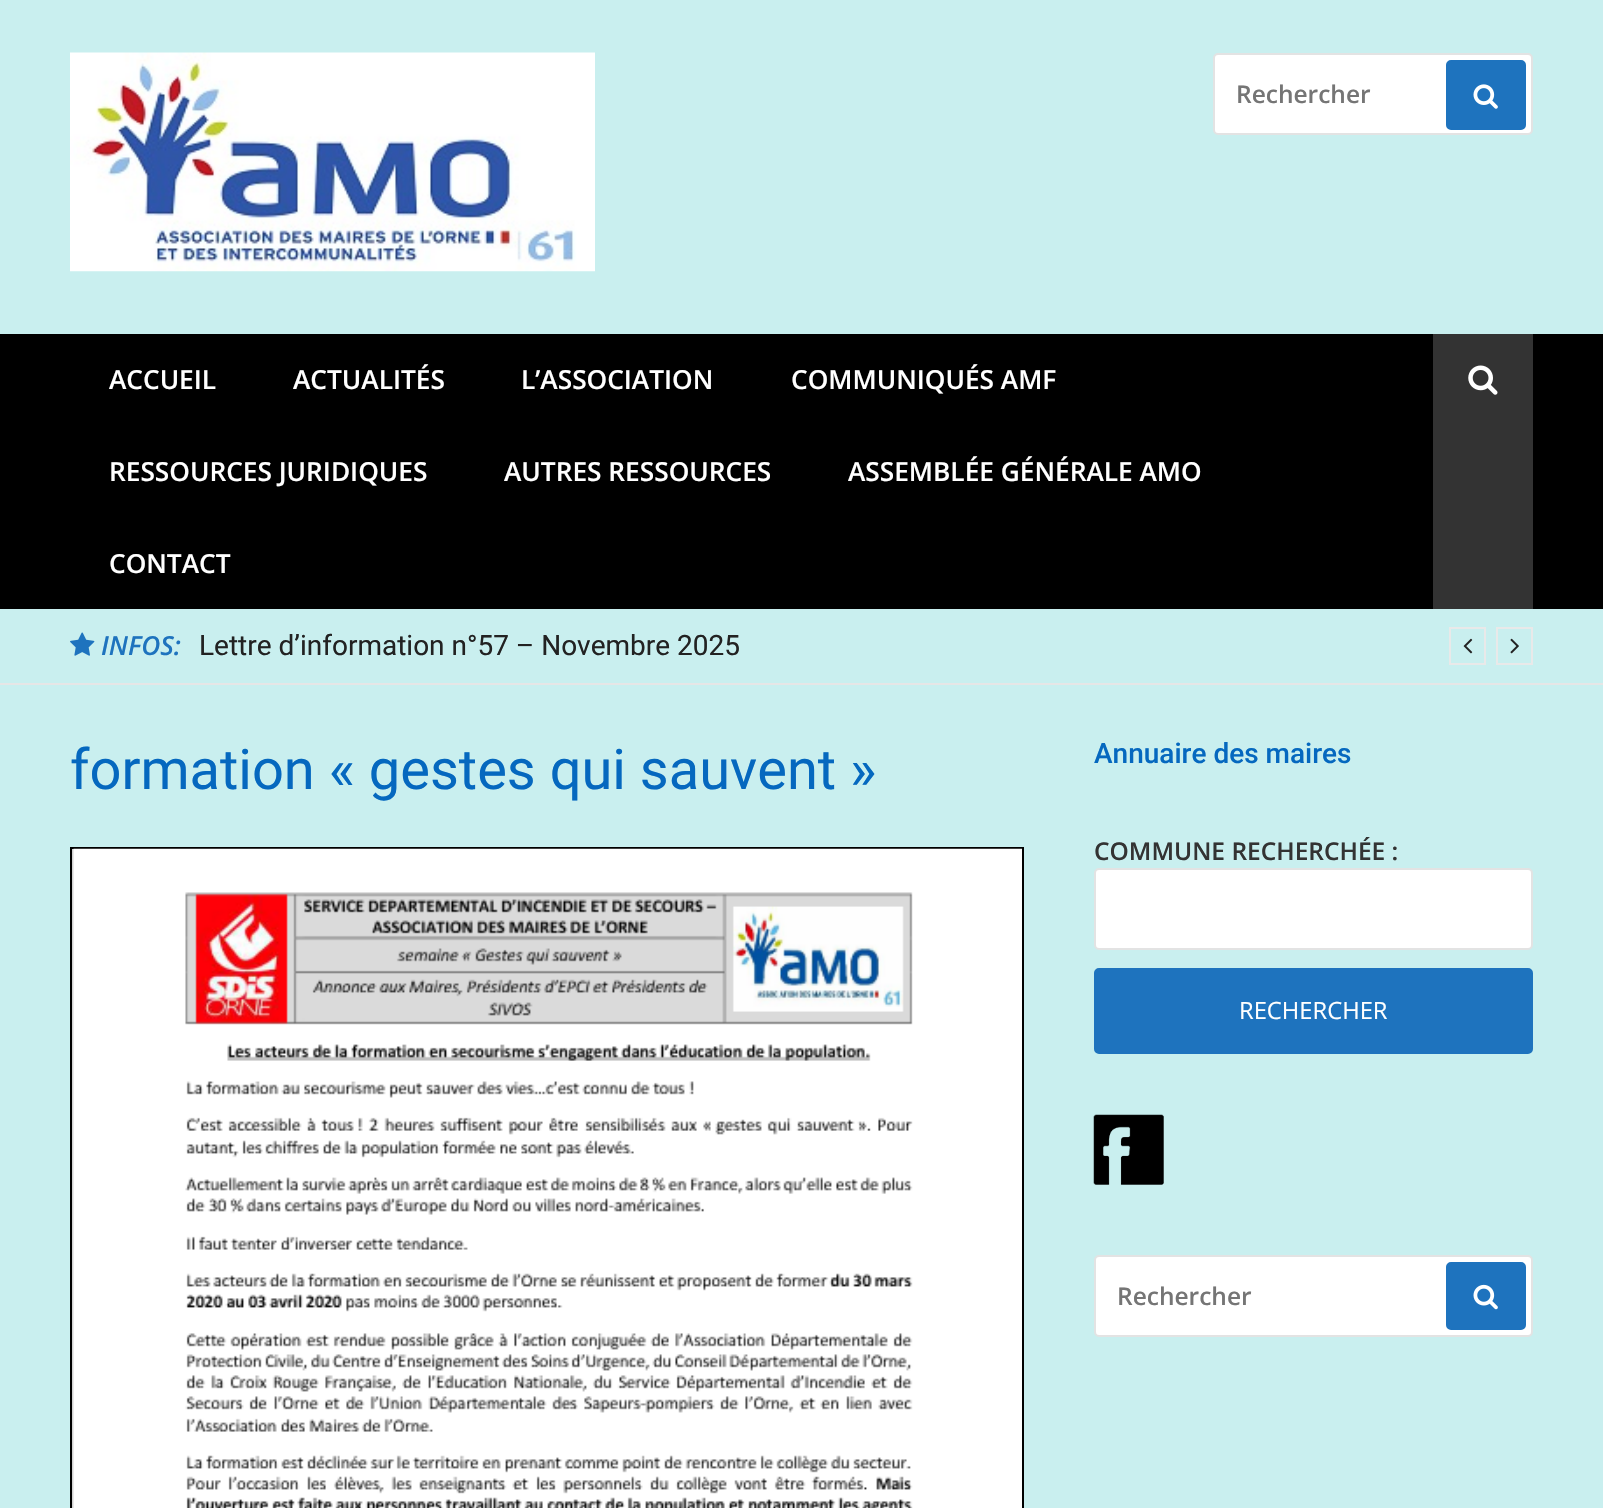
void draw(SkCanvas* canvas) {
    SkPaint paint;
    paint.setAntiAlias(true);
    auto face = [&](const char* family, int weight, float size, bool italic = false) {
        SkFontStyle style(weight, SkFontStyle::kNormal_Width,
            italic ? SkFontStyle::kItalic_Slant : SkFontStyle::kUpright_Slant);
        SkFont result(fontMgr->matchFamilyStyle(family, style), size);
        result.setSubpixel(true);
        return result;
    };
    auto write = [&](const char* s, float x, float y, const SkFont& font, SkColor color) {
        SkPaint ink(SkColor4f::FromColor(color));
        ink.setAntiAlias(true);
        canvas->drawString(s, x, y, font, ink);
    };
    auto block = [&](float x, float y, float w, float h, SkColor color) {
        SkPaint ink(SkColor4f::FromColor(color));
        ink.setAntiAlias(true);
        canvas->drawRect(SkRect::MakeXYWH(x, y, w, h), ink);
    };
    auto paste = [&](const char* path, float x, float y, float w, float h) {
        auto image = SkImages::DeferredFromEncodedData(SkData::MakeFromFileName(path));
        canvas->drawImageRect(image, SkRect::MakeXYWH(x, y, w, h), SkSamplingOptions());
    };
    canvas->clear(SkColorSetRGB(201, 239, 239));
    paste("pic1.png", 70, 52, 525, 220);
    paint.setColor(SK_ColorWHITE);
    canvas->drawRoundRect(SkRect::MakeXYWH(1214, 54, 318, 80), 4, 4, paint);
    paint.setStyle(SkPaint::kStroke_Style);
    paint.setStrokeWidth(2);
    paint.setColor(SkColorSetRGB(227, 227, 227));
    canvas->drawRoundRect(SkRect::MakeXYWH(1214, 54, 318, 80), 4, 4, paint);
    auto kFont1 = face("Open Sans", 600, 24.5f);
    write("Rechercher", 1236, 103, kFont1, SkColorSetRGB(117, 117, 117));
    paint.setStyle(SkPaint::kFill_Style);
    paint.setColor(SkColorSetRGB(30, 115, 190));
    canvas->drawRoundRect(SkRect::MakeXYWH(1447, 61, 78, 68), 4, 4, paint);
    paint.setStyle(SkPaint::kStroke_Style);
    canvas->drawRoundRect(SkRect::MakeXYWH(1447, 61, 78, 68), 4, 4, paint);
    paste("pic2.png", 1473, 84, 25, 25);
    block(0, 334, 1603, 275, SK_ColorBLACK);
    auto kFont2 = face("Open Sans", 600, 26.25f);
    write("ACCUEIL", 109, 389, kFont2, SK_ColorWHITE);
    write("ACTUALITÉS", 293, 389, kFont2, SK_ColorWHITE);
    write("L’ASSOCIATION", 521, 389, kFont2, SK_ColorWHITE);
    write("COMMUNIQUÉS AMF", 791, 389, kFont2, SK_ColorWHITE);
    write("RESSOURCES JURIDIQUES", 109, 481, kFont2, SK_ColorWHITE);
    write("AUTRES RESSOURCES", 504, 481, kFont2, SK_ColorWHITE);
    write("ASSEMBLÉE GÉNÉRALE AMO", 848, 481, kFont2, SK_ColorWHITE);
    write("CONTACT", 109, 573, kFont2, SK_ColorWHITE);
    block(1433, 334, 100, 275, SkColorSetRGB(51, 51, 51));
    paste("pic3.png", 1468, 365, 30, 30);
    block(0, 683, 1603, 2, SkColorSetRGB(230, 230, 230));
    paste("pic4.png", 70, 632, 25, 24);
    auto kFont3 = face("Open Sans", 600, 26.25f, true);
    write("INFOS:", 101, 655, kFont3, SkColorSetRGB(30, 115, 190));
    auto kFont4 = face("Roboto", 400, 28);
    write("Lettre d’information n°57 – Novembre 2025", 199, 655, kFont4, SkColorSetRGB(34, 34, 34));
    paint.setColor(SkColorSetRGB(233, 233, 233));
    canvas->drawRect(SkRect::MakeXYWH(1450, 628, 35, 36), paint);
    paste("pic5.png", 1463, 638, 10, 16);
    canvas->drawRect(SkRect::MakeXYWH(1497, 628, 35, 36), paint);
    paste("pic6.png", 1510, 638, 9, 16);
    auto kFont5 = face("Roboto", 400, 56);
    write("formation « gestes qui sauvent »", 70, 789, kFont5, SkColorSetRGB(5, 104, 191));
    block(72, 849, 2, 659, SkColorSetRGB(211, 211, 211));
    paint.setColor(SK_ColorBLACK);
    canvas->drawRect(SkRect::MakeXYWH(71, 848, 952, 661), paint);
    paste("pic7.png", 73, 848, 949, 660);
    auto kFont6 = face("Roboto", 500, 28);
    write("Annuaire des maires", 1094, 763, kFont6, SkColorSetRGB(5, 104, 191));
    write("COMMUNE RECHERCHÉE :", 1094, 860, kFont1, SkColorSetRGB(51, 51, 51));
    paint.setStyle(SkPaint::kFill_Style);
    paint.setColor(SK_ColorWHITE);
    canvas->drawRoundRect(SkRect::MakeXYWH(1095, 869, 437, 80), 4, 4, paint);
    paint.setStyle(SkPaint::kStroke_Style);
    paint.setColor(SkColorSetRGB(227, 227, 227));
    canvas->drawRoundRect(SkRect::MakeXYWH(1095, 869, 437, 80), 4, 4, paint);
    paint.setStyle(SkPaint::kFill_Style);
    paint.setColor(SkColorSetRGB(30, 115, 190));
    canvas->drawRoundRect(SkRect::MakeXYWH(1095, 969, 437, 84), 4, 4, paint);
    paint.setStyle(SkPaint::kStroke_Style);
    canvas->drawRoundRect(SkRect::MakeXYWH(1095, 969, 437, 84), 4, 4, paint);
    auto kFont7 = face("Open Sans", 400, 23.75f);
    write("RECHERCHER", 1239, 1019, kFont7, SK_ColorWHITE);
    paste("pic8.png", 1093, 1114, 71, 71);
    paint.setStyle(SkPaint::kFill_Style);
    paint.setColor(SK_ColorWHITE);
    canvas->drawRoundRect(SkRect::MakeXYWH(1095, 1256, 437, 80), 4, 4, paint);
    paint.setStyle(SkPaint::kStroke_Style);
    paint.setColor(SkColorSetRGB(227, 227, 227));
    canvas->drawRoundRect(SkRect::MakeXYWH(1095, 1256, 437, 80), 4, 4, paint);
    write("Rechercher", 1117, 1305, kFont1, SkColorSetRGB(117, 117, 117));
    paint.setStyle(SkPaint::kFill_Style);
    paint.setColor(SkColorSetRGB(30, 115, 190));
    canvas->drawRoundRect(SkRect::MakeXYWH(1447, 1263, 78, 66), 4, 4, paint);
    paint.setStyle(SkPaint::kStroke_Style);
    canvas->drawRoundRect(SkRect::MakeXYWH(1447, 1263, 78, 66), 4, 4, paint);
    paste("pic9.png", 1473, 1284, 25, 26);
}
